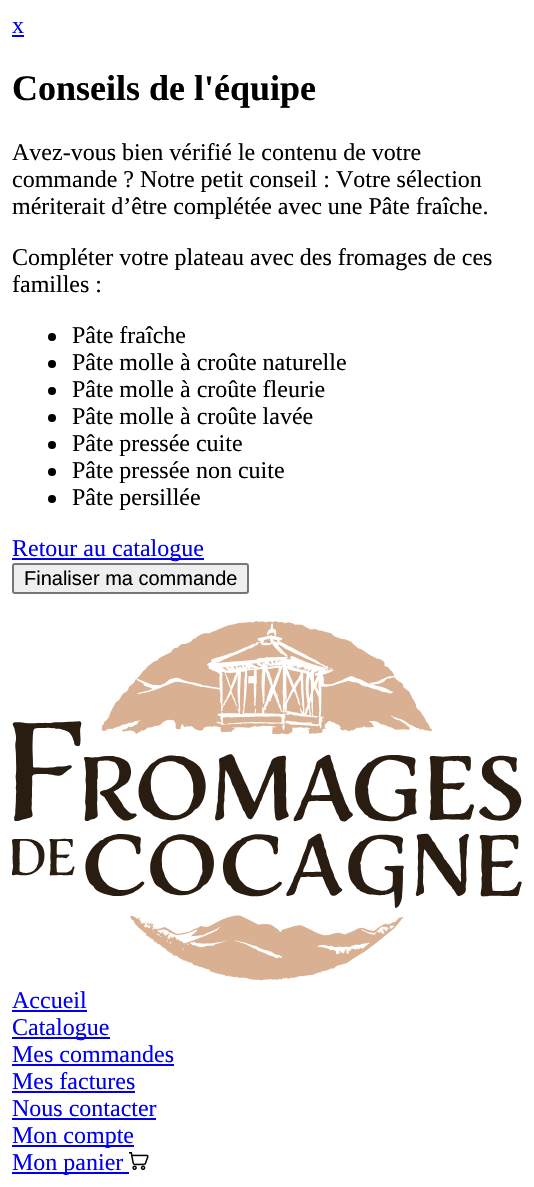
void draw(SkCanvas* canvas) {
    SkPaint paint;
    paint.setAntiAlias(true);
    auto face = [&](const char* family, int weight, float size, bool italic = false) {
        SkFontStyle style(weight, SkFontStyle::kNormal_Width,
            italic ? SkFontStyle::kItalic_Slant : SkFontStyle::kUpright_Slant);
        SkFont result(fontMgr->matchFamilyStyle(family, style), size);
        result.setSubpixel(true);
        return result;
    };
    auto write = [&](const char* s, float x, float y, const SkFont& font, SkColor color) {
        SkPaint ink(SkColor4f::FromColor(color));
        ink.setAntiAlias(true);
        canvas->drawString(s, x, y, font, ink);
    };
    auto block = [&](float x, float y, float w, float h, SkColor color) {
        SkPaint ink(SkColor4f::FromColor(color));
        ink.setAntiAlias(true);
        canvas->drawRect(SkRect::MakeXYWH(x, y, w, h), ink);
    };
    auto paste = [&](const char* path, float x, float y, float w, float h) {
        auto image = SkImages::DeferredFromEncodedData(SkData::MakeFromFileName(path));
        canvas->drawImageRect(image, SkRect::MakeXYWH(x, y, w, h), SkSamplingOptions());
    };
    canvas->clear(SK_ColorWHITE);
    auto kFont1 = face("Liberation Serif", 400, 24);
    write("x", 12, 33, kFont1, SkColorSetRGB(0, 0, 238));
    block(12, 35, 12, 2, SkColorSetRGB(0, 0, 238));
    auto kFont2 = face("Liberation Serif", 700, 36);
    write("Conseils de l'équipe", 12, 100, kFont2, SK_ColorBLACK);
    write("Avez-vous bien vérifié le contenu de votre", 12, 160, kFont1, SK_ColorBLACK);
    write("commande ? Notre petit conseil : Votre sélection", 12, 187, kFont1, SK_ColorBLACK);
    write("mériterait d’être complétée avec une Pâte fraîche.", 12, 214, kFont1, SK_ColorBLACK);
    write("Compléter votre plateau avec des fromages de ces", 12, 265, kFont1, SK_ColorBLACK);
    write("familles :", 12, 292, kFont1, SK_ColorBLACK);
    paint.setColor(SK_ColorBLACK);
    canvas->drawCircle(52, 337, 4, paint);
    write("Pâte fraîche", 72, 343, kFont1, SK_ColorBLACK);
    canvas->drawCircle(52, 364, 4, paint);
    write("Pâte molle à croûte naturelle", 72, 370, kFont1, SK_ColorBLACK);
    canvas->drawCircle(52, 391, 4, paint);
    write("Pâte molle à croûte fleurie", 72, 397, kFont1, SK_ColorBLACK);
    canvas->drawCircle(52, 418, 4, paint);
    write("Pâte molle à croûte lavée", 72, 424, kFont1, SK_ColorBLACK);
    canvas->drawCircle(52, 445, 4, paint);
    write("Pâte pressée cuite", 72, 451, kFont1, SK_ColorBLACK);
    canvas->drawCircle(52, 472, 4, paint);
    write("Pâte pressée non cuite", 72, 478, kFont1, SK_ColorBLACK);
    canvas->drawCircle(52, 499, 4, paint);
    write("Pâte persillée", 72, 505, kFont1, SK_ColorBLACK);
    block(12, 558, 192, 2, SkColorSetRGB(0, 0, 238));
    write("Retour au catalogue", 12, 556, kFont1, SkColorSetRGB(0, 0, 238));
    paint.setColor(SkColorSetRGB(239, 239, 239));
    canvas->drawRoundRect(SkRect::MakeXYWH(13, 564, 235, 29), 2, 2, paint);
    paint.setStyle(SkPaint::kStroke_Style);
    paint.setStrokeWidth(2);
    paint.setColor(SkColorSetRGB(118, 118, 118));
    canvas->drawRoundRect(SkRect::MakeXYWH(13, 564, 235, 29), 2, 2, paint);
    auto kFont3 = face("Liberation Sans", 400, 20);
    write("Finaliser ma commande", 24, 585, kFont3, SK_ColorBLACK);
    paste("pic1.png", 12, 621, 510, 360);
    write("Accueil", 12, 1008, kFont1, SkColorSetRGB(0, 0, 238));
    block(12, 1010, 75, 2, SkColorSetRGB(0, 0, 238));
    block(12, 1037, 98, 2, SkColorSetRGB(0, 0, 238));
    write("Catalogue", 12, 1035, kFont1, SkColorSetRGB(0, 0, 238));
    write("Mes commandes", 12, 1062, kFont1, SkColorSetRGB(0, 0, 238));
    block(12, 1064, 162, 2, SkColorSetRGB(0, 0, 238));
    write("Mes factures", 12, 1089, kFont1, SkColorSetRGB(0, 0, 238));
    block(12, 1091, 123, 2, SkColorSetRGB(0, 0, 238));
    write("Nous contacter", 12, 1116, kFont1, SkColorSetRGB(0, 0, 238));
    block(12, 1118, 144, 2, SkColorSetRGB(0, 0, 238));
    block(12, 1145, 122, 2, SkColorSetRGB(0, 0, 238));
    write("Mon compte", 12, 1143, kFont1, SkColorSetRGB(0, 0, 238));
    block(12, 1172, 111, 2, SkColorSetRGB(0, 0, 238));
    write("Mon panier", 12, 1170, kFont1, SkColorSetRGB(0, 0, 238));
    block(123, 1172, 6, 2, SkColorSetRGB(0, 0, 238));
    paste("pic2.png", 129, 1152, 20, 18);
}
